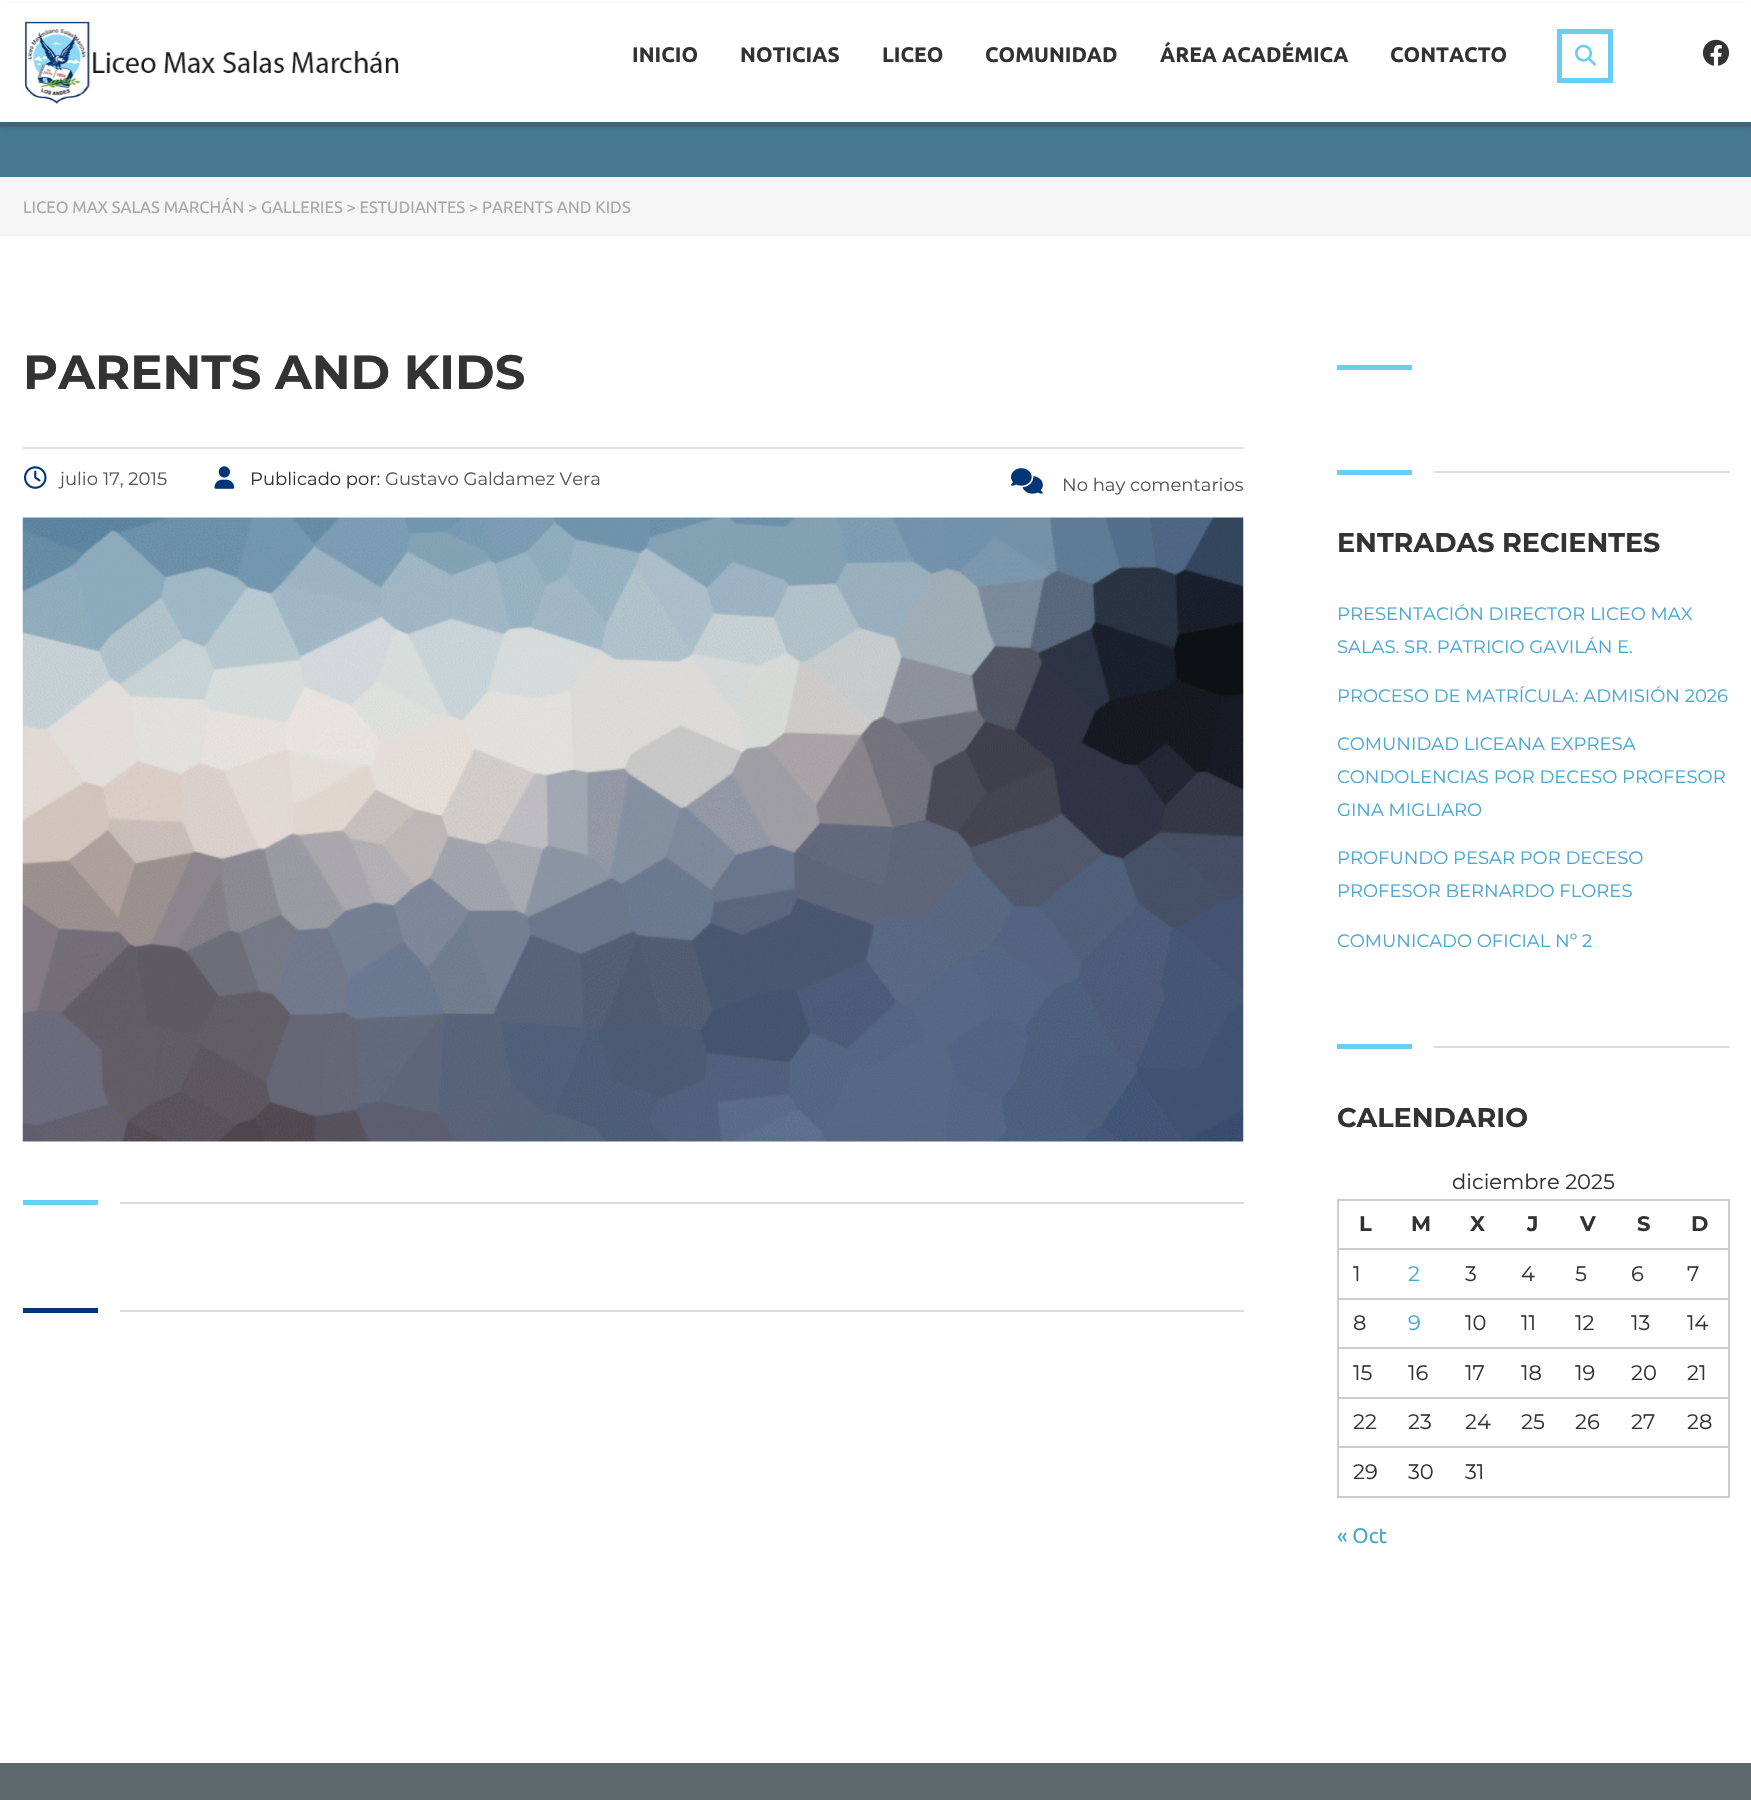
void draw(SkCanvas* canvas) {
    SkPaint paint;
    paint.setAntiAlias(true);
    auto face = [&](const char* family, int weight, float size, bool italic = false) {
        SkFontStyle style(weight, SkFontStyle::kNormal_Width,
            italic ? SkFontStyle::kItalic_Slant : SkFontStyle::kUpright_Slant);
        SkFont result(fontMgr->matchFamilyStyle(family, style), size);
        result.setSubpixel(true);
        return result;
    };
    auto write = [&](const char* s, float x, float y, const SkFont& font, SkColor color) {
        SkPaint ink(SkColor4f::FromColor(color));
        ink.setAntiAlias(true);
        canvas->drawString(s, x, y, font, ink);
    };
    auto block = [&](float x, float y, float w, float h, SkColor color) {
        SkPaint ink(SkColor4f::FromColor(color));
        ink.setAntiAlias(true);
        canvas->drawRect(SkRect::MakeXYWH(x, y, w, h), ink);
    };
    auto paste = [&](const char* path, float x, float y, float w, float h) {
        auto image = SkImages::DeferredFromEncodedData(SkData::MakeFromFileName(path));
        canvas->drawImageRect(image, SkRect::MakeXYWH(x, y, w, h), SkSamplingOptions());
    };
    canvas->clear(SK_ColorWHITE);
    block(0, 122, 1751, 55, SkColorSetRGB(69, 121, 146));
    paint.setColor(SkColorSetARGB(20, 0, 0, 0));
    paint.setMaskFilter(SkMaskFilter::MakeBlur(kNormal_SkBlurStyle, 4));
    canvas->drawRect(SkRect::MakeXYWH(0, 8, 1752, 121), paint);
    paint.setMaskFilter(nullptr);
    block(0, 3, 1751, 119, SK_ColorWHITE);
    paste("pic1.png", 24, 21, 375, 83);
    auto kFont1 = face("Ubuntu", 700, 21);
    write("INICIO", 632, 62, kFont1, SkColorSetRGB(51, 51, 51));
    write("NOTICIAS", 740, 62, kFont1, SkColorSetRGB(51, 51, 51));
    write("LICEO", 882, 62, kFont1, SkColorSetRGB(51, 51, 51));
    write("COMUNIDAD", 985, 62, kFont1, SkColorSetRGB(51, 51, 51));
    write("ÁREA ACADÉMICA", 1160, 62, kFont1, SkColorSetRGB(51, 51, 51));
    write("CONTACTO", 1390, 62, kFont1, SkColorSetRGB(51, 51, 51));
    paint.setStyle(SkPaint::kStroke_Style);
    paint.setStrokeWidth(5);
    paint.setColor(SkColorSetRGB(105, 205, 244));
    canvas->drawRect(SkRect::MakeXYWH(1559.5f, 31.5f, 51, 49), paint);
    paste("pic2.png", 1575, 44, 21, 22);
    paste("pic3.png", 1702, 39, 28, 27);
    block(0, 122, 1751, 5, SkColorSetARGB(26, 0, 0, 0));
    block(0, 177, 1751, 57, SkColorSetRGB(246, 246, 246));
    block(0, 234, 1751, 2, SkColorSetRGB(240, 242, 245));
    auto kFont2 = face("Ubuntu", 400, 16.5f);
    write("LICEO MAX SALAS MARCHÁN > GALLERIES > ESTUDIANTES > PARENTS AND KIDS", 23, 213, kFont2, SkColorSetRGB(170, 170, 170));
    block(23, 447, 1221, 2, SkColorSetRGB(225, 226, 228));
    auto kFont3 = face("Montserrat", 700, 48);
    write("PARENTS AND KIDS", 23, 389, kFont3, SkColorSetRGB(51, 51, 51));
    paste("pic4.png", 24, 466, 23, 23);
    auto kFont4 = face("Montserrat", 400, 18);
    write("julio 17, 2015", 60, 485, kFont4, SkColorSetRGB(85, 85, 85));
    paste("pic5.png", 214, 466, 21, 23);
    write("Publicado por:", 250, 485, kFont4, SkColorSetRGB(51, 51, 51));
    write("Gustavo Galdamez Vera", 385, 485, kFont4, SkColorSetRGB(85, 85, 85));
    paste("pic6.png", 1011, 468, 32, 26);
    write("No hay comentarios", 1062, 491, kFont4, SkColorSetRGB(85, 85, 85));
    paste("pic7.png", 22, 517, 1222, 625);
    block(23, 1200, 75, 5, SkColorSetRGB(105, 205, 244));
    block(120, 1202, 1124, 2, SkColorSetRGB(220, 220, 220));
    block(23, 1308, 75, 5, SkColorSetRGB(1, 54, 118));
    block(120, 1310, 1124, 2, SkColorSetRGB(220, 220, 220));
    block(1337, 365, 75, 5, SkColorSetRGB(105, 205, 244));
    block(1337, 470, 75, 5, SkColorSetRGB(105, 205, 244));
    block(1434, 471, 296, 2, SkColorSetRGB(220, 220, 220));
    auto kFont5 = face("Montserrat", 700, 27);
    write("ENTRADAS RECIENTES", 1337, 552, kFont5, SkColorSetRGB(51, 51, 51));
    write("PRESENTACIÓN DIRECTOR LICEO MAX", 1337, 620, kFont4, SkColorSetRGB(72, 167, 212));
    write("SALAS. SR. PATRICIO GAVILÁN E.", 1337, 653, kFont4, SkColorSetRGB(72, 167, 212));
    write("PROCESO DE MATRÍCULA: ADMISIÓN 2026", 1337, 702, kFont4, SkColorSetRGB(72, 167, 212));
    write("COMUNIDAD LICEANA EXPRESA", 1337, 750, kFont4, SkColorSetRGB(72, 167, 212));
    write("CONDOLENCIAS POR DECESO PROFESOR", 1337, 783, kFont4, SkColorSetRGB(72, 167, 212));
    write("GINA MIGLIARO", 1337, 816, kFont4, SkColorSetRGB(72, 167, 212));
    write("PROFUNDO PESAR POR DECESO", 1337, 864, kFont4, SkColorSetRGB(72, 167, 212));
    write("PROFESOR BERNARDO FLORES", 1337, 897, kFont4, SkColorSetRGB(72, 167, 212));
    write("COMUNICADO OFICIAL Nº 2", 1337, 947, kFont4, SkColorSetRGB(72, 167, 212));
    block(1337, 1044, 75, 5, SkColorSetRGB(105, 205, 244));
    block(1434, 1046, 296, 2, SkColorSetRGB(220, 220, 220));
    write("CALENDARIO", 1337, 1127, kFont5, SkColorSetRGB(51, 51, 51));
    auto kFont6 = face("Montserrat", 400, 21);
    write("diciembre 2025", 1452, 1189, kFont6, SkColorSetRGB(51, 51, 51));
    block(1337, 1199, 393, 2, SkColorSetRGB(204, 204, 204));
    block(1337, 1248, 393, 2, SkColorSetRGB(204, 204, 204));
    block(1337, 1298, 393, 2, SkColorSetRGB(204, 204, 204));
    block(1337, 1347, 393, 2, SkColorSetRGB(204, 204, 204));
    block(1337, 1397, 393, 2, SkColorSetRGB(204, 204, 204));
    block(1337, 1446, 393, 2, SkColorSetRGB(204, 204, 204));
    block(1728, 1446, 2, 51, SkColorSetRGB(204, 204, 204));
    block(1728, 1397, 2, 51, SkColorSetRGB(204, 204, 204));
    block(1728, 1347, 2, 51, SkColorSetRGB(204, 204, 204));
    block(1728, 1298, 2, 51, SkColorSetRGB(204, 204, 204));
    block(1728, 1248, 2, 51, SkColorSetRGB(204, 204, 204));
    block(1728, 1199, 2, 51, SkColorSetRGB(204, 204, 204));
    block(1337, 1496, 393, 2, SkColorSetRGB(204, 204, 204));
    block(1337, 1446, 2, 51, SkColorSetRGB(204, 204, 204));
    block(1337, 1397, 2, 51, SkColorSetRGB(204, 204, 204));
    block(1337, 1347, 2, 51, SkColorSetRGB(204, 204, 204));
    block(1337, 1298, 2, 51, SkColorSetRGB(204, 204, 204));
    block(1337, 1248, 2, 51, SkColorSetRGB(204, 204, 204));
    block(1337, 1199, 2, 51, SkColorSetRGB(204, 204, 204));
    auto kFont7 = face("Montserrat", 700, 21);
    write("L", 1359, 1231, kFont7, SkColorSetRGB(51, 51, 51));
    write("M", 1411, 1231, kFont7, SkColorSetRGB(51, 51, 51));
    write("X", 1470, 1231, kFont7, SkColorSetRGB(51, 51, 51));
    write("J", 1527, 1231, kFont7, SkColorSetRGB(51, 51, 51));
    write("V", 1580, 1231, kFont7, SkColorSetRGB(51, 51, 51));
    write("S", 1637, 1231, kFont7, SkColorSetRGB(51, 51, 51));
    write("D", 1691, 1231, kFont7, SkColorSetRGB(51, 51, 51));
    write("1", 1353, 1281, kFont6, SkColorSetRGB(51, 51, 51));
    write("2", 1408, 1281, kFont6, SkColorSetRGB(72, 167, 212));
    write("3", 1465, 1281, kFont6, SkColorSetRGB(51, 51, 51));
    write("4", 1521, 1281, kFont6, SkColorSetRGB(51, 51, 51));
    write("5", 1575, 1281, kFont6, SkColorSetRGB(51, 51, 51));
    write("6", 1631, 1281, kFont6, SkColorSetRGB(51, 51, 51));
    write("7", 1687, 1281, kFont6, SkColorSetRGB(51, 51, 51));
    write("8", 1353, 1330, kFont6, SkColorSetRGB(51, 51, 51));
    write("9", 1408, 1330, kFont6, SkColorSetRGB(72, 167, 212));
    write("10", 1465, 1330, kFont6, SkColorSetRGB(51, 51, 51));
    write("11", 1521, 1330, kFont6, SkColorSetRGB(51, 51, 51));
    write("12", 1575, 1330, kFont6, SkColorSetRGB(51, 51, 51));
    write("13", 1631, 1330, kFont6, SkColorSetRGB(51, 51, 51));
    write("14", 1687, 1330, kFont6, SkColorSetRGB(51, 51, 51));
    write("15", 1353, 1380, kFont6, SkColorSetRGB(51, 51, 51));
    write("16", 1408, 1380, kFont6, SkColorSetRGB(51, 51, 51));
    write("17", 1465, 1380, kFont6, SkColorSetRGB(51, 51, 51));
    write("18", 1521, 1380, kFont6, SkColorSetRGB(51, 51, 51));
    write("19", 1575, 1380, kFont6, SkColorSetRGB(51, 51, 51));
    write("20", 1631, 1380, kFont6, SkColorSetRGB(51, 51, 51));
    write("21", 1687, 1380, kFont6, SkColorSetRGB(51, 51, 51));
    write("22", 1353, 1429, kFont6, SkColorSetRGB(51, 51, 51));
    write("23", 1408, 1429, kFont6, SkColorSetRGB(51, 51, 51));
    write("24", 1465, 1429, kFont6, SkColorSetRGB(51, 51, 51));
    write("25", 1521, 1429, kFont6, SkColorSetRGB(51, 51, 51));
    write("26", 1575, 1429, kFont6, SkColorSetRGB(51, 51, 51));
    write("27", 1631, 1429, kFont6, SkColorSetRGB(51, 51, 51));
    write("28", 1687, 1429, kFont6, SkColorSetRGB(51, 51, 51));
    write("29", 1353, 1479, kFont6, SkColorSetRGB(51, 51, 51));
    write("30", 1408, 1479, kFont6, SkColorSetRGB(51, 51, 51));
    write("31", 1465, 1479, kFont6, SkColorSetRGB(51, 51, 51));
    auto kFont8 = face("Ubuntu", 400, 21);
    write("« Oct", 1337, 1543, kFont8, SkColorSetRGB(72, 167, 212));
    block(0, 1763, 1751, 37, SkColorSetRGB(94, 103, 107));
}
